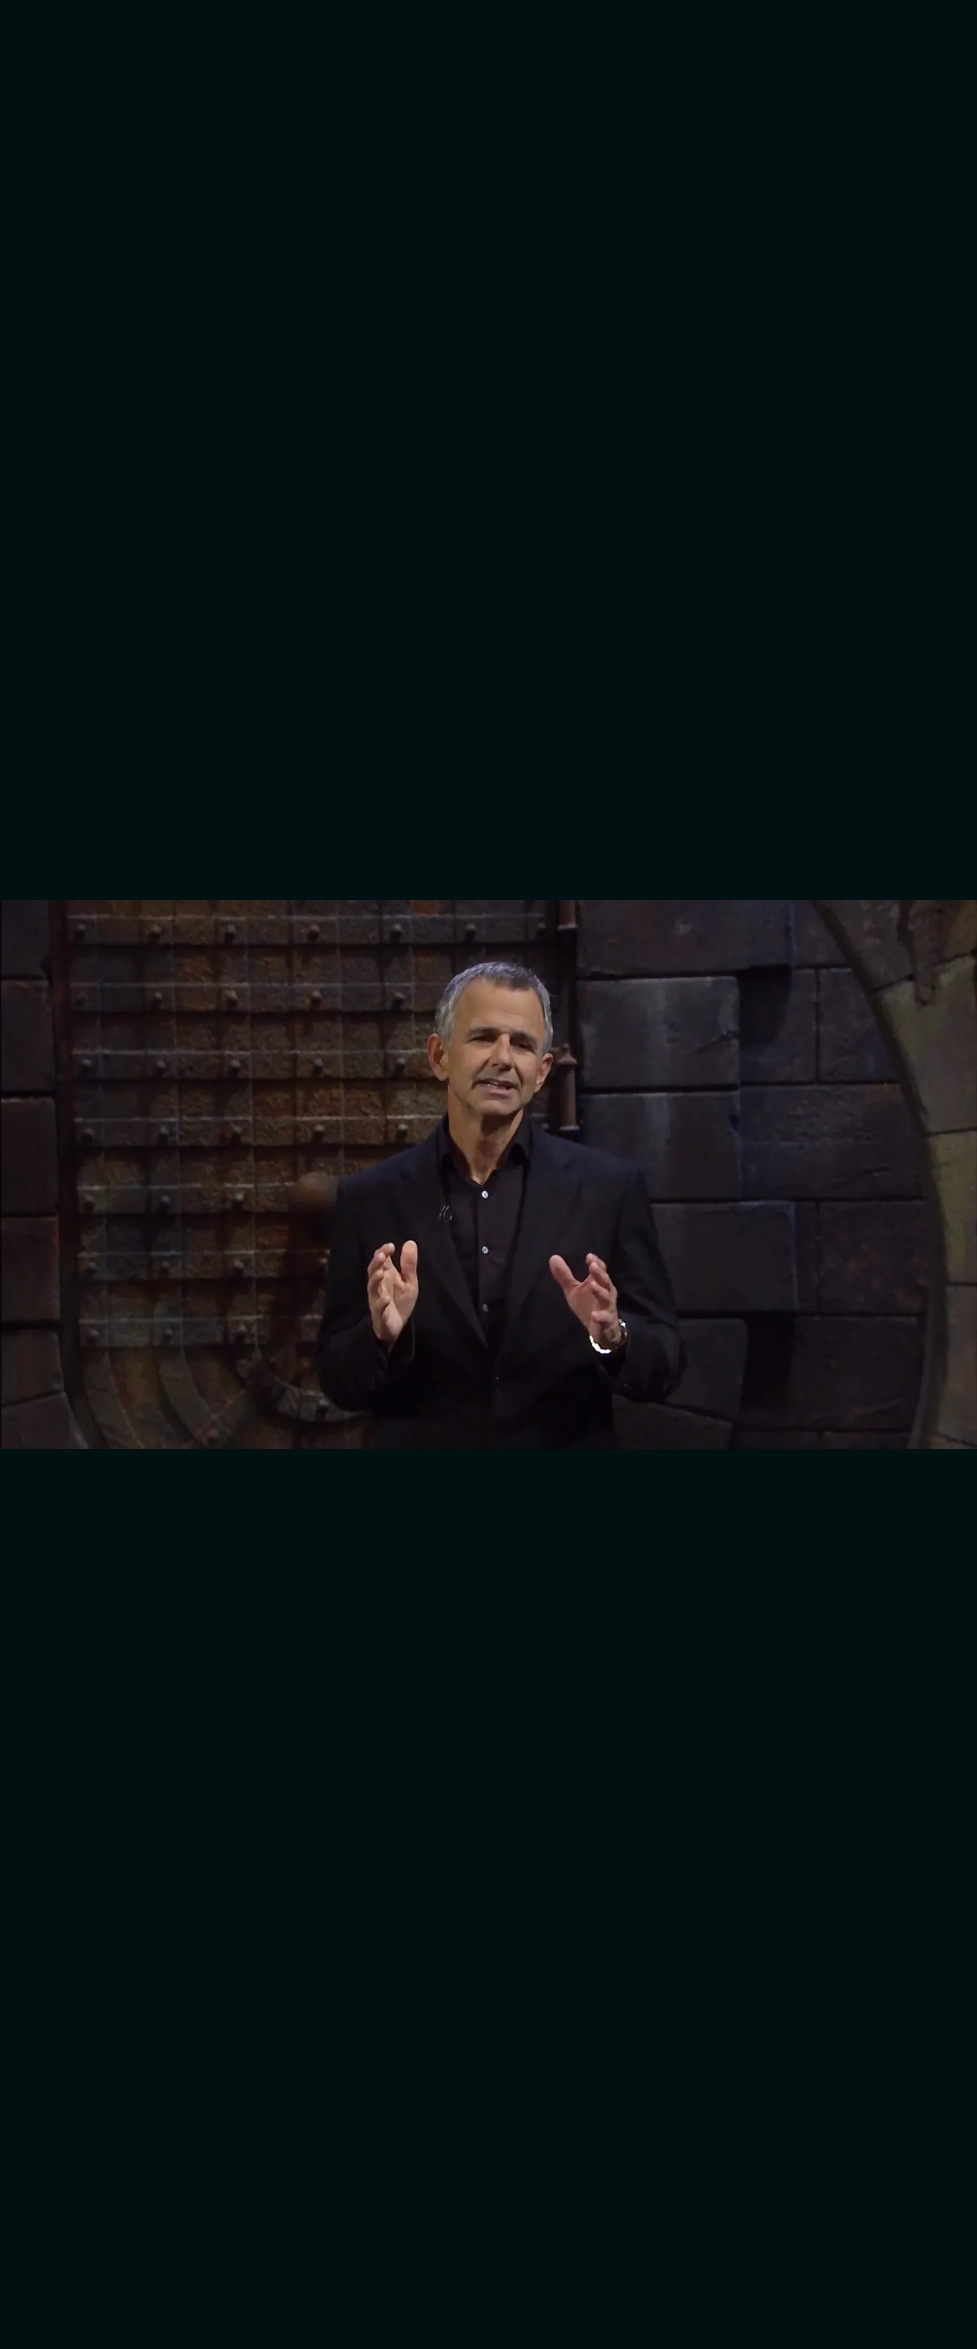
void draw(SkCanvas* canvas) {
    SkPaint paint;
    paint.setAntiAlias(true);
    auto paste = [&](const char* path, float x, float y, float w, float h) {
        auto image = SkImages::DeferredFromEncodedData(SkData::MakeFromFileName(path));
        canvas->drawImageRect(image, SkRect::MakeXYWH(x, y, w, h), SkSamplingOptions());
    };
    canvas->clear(SkColorSetRGB(1, 16, 16));
    paste("pic1.png", 0, 900, 977, 549);
}
